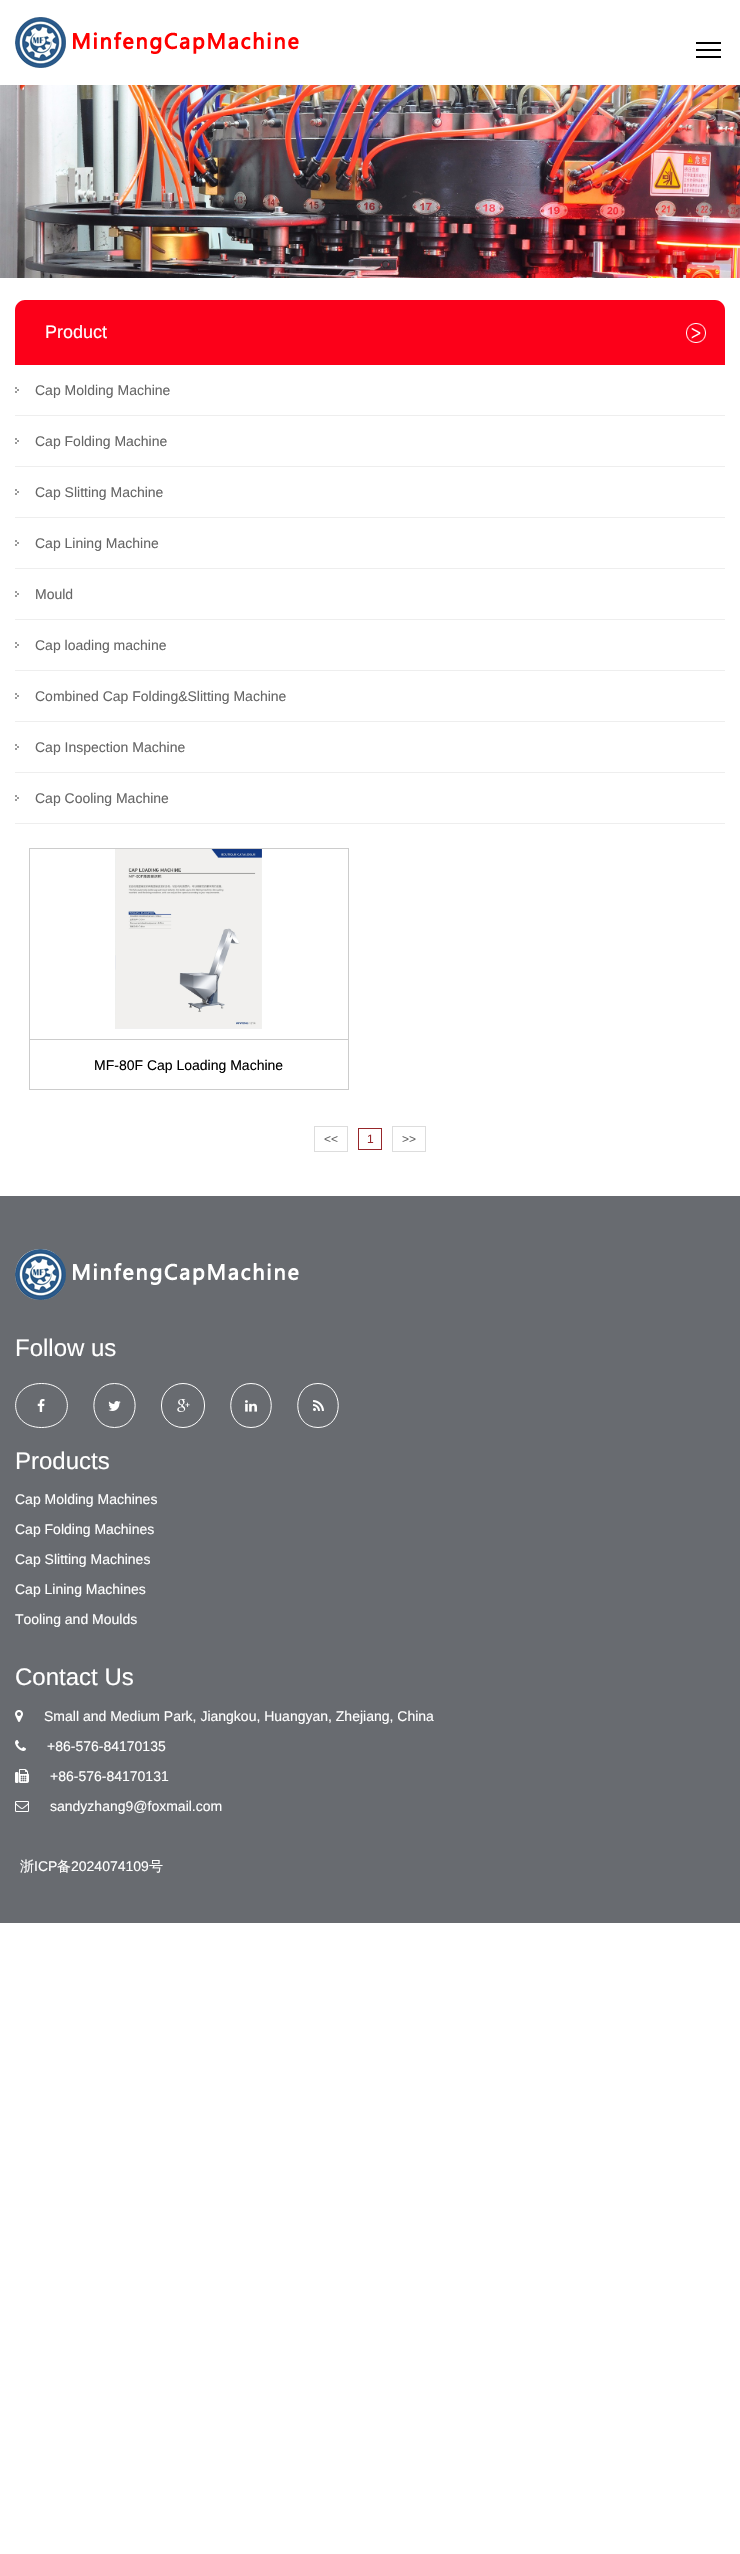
void draw(SkCanvas* canvas) {
    SkPaint paint;
    paint.setAntiAlias(true);
    auto face = [&](const char* family, int weight, float size, bool italic = false) {
        SkFontStyle style(weight, SkFontStyle::kNormal_Width,
            italic ? SkFontStyle::kItalic_Slant : SkFontStyle::kUpright_Slant);
        SkFont result(fontMgr->matchFamilyStyle(family, style), size);
        result.setSubpixel(true);
        return result;
    };
    auto write = [&](const char* s, float x, float y, const SkFont& font, SkColor color) {
        SkPaint ink(SkColor4f::FromColor(color));
        ink.setAntiAlias(true);
        canvas->drawString(s, x, y, font, ink);
    };
    auto block = [&](float x, float y, float w, float h, SkColor color) {
        SkPaint ink(SkColor4f::FromColor(color));
        ink.setAntiAlias(true);
        canvas->drawRect(SkRect::MakeXYWH(x, y, w, h), ink);
    };
    auto paste = [&](const char* path, float x, float y, float w, float h) {
        auto image = SkImages::DeferredFromEncodedData(SkData::MakeFromFileName(path));
        canvas->drawImageRect(image, SkRect::MakeXYWH(x, y, w, h), SkSamplingOptions());
    };
    canvas->clear(SK_ColorWHITE);
    paste("pic1.png", 15, 17, 284, 51);
    block(696, 49, 25, 2, SK_ColorBLACK);
    block(696, 42, 25, 2, SK_ColorBLACK);
    block(696, 56, 25, 2, SK_ColorBLACK);
    paste("pic2.png", 0, 85, 740, 193);
    paint.setColor(SkColorSetRGB(252, 0, 25));
    canvas->drawPath(SkPathBuilder().moveTo(25, 300).lineTo(715, 300).cubicTo(720.5f, 300, 725, 304.5f, 725, 310).lineTo(725, 365).lineTo(15, 365).lineTo(15, 310).cubicTo(15, 304.5f, 19.5f, 300, 25, 300).close().detach(), paint);
    paste("pic3.png", 686, 323, 20, 20);
    auto kFont1 = face("Liberation Sans", 400, 18);
    write("Product", 45, 338, kFont1, SK_ColorWHITE);
    paste("pic4.png", 15, 387, 4, 6);
    block(15, 415, 710, 1, SkColorSetRGB(238, 238, 238));
    auto kFont2 = face("Liberation Sans", 400, 14);
    write("Cap Molding Machine", 35, 395, kFont2, SkColorSetRGB(102, 102, 102));
    paste("pic4.png", 15, 438, 4, 6);
    block(15, 466, 710, 1, SkColorSetRGB(238, 238, 238));
    write("Cap Folding Machine", 35, 446, kFont2, SkColorSetRGB(102, 102, 102));
    paste("pic4.png", 15, 489, 4, 6);
    block(15, 517, 710, 1, SkColorSetRGB(238, 238, 238));
    write("Cap Slitting Machine", 35, 497, kFont2, SkColorSetRGB(102, 102, 102));
    paste("pic4.png", 15, 540, 4, 6);
    block(15, 568, 710, 1, SkColorSetRGB(238, 238, 238));
    write("Cap Lining Machine", 35, 548, kFont2, SkColorSetRGB(102, 102, 102));
    paste("pic4.png", 15, 591, 4, 6);
    block(15, 619, 710, 1, SkColorSetRGB(238, 238, 238));
    write("Mould", 35, 599, kFont2, SkColorSetRGB(102, 102, 102));
    paste("pic4.png", 15, 642, 4, 6);
    block(15, 670, 710, 1, SkColorSetRGB(238, 238, 238));
    write("Cap loading machine", 35, 650, kFont2, SkColorSetRGB(102, 102, 102));
    paste("pic4.png", 15, 693, 4, 6);
    block(15, 721, 710, 1, SkColorSetRGB(238, 238, 238));
    write("Combined Cap Folding&Slitting Machine", 35, 701, kFont2, SkColorSetRGB(102, 102, 102));
    paste("pic4.png", 15, 744, 4, 6);
    block(15, 772, 710, 1, SkColorSetRGB(238, 238, 238));
    write("Cap Inspection Machine", 35, 752, kFont2, SkColorSetRGB(102, 102, 102));
    paste("pic4.png", 15, 795, 4, 6);
    block(15, 823, 710, 1, SkColorSetRGB(238, 238, 238));
    write("Cap Cooling Machine", 35, 803, kFont2, SkColorSetRGB(102, 102, 102));
    paint.setStyle(SkPaint::kStroke_Style);
    paint.setStrokeWidth(1);
    paint.setColor(SkColorSetRGB(204, 204, 204));
    canvas->drawRect(SkRect::MakeXYWH(29.5f, 848.5f, 319, 241), paint);
    paste("pic5.png", 115, 849, 147, 180);
    block(30, 1039, 318, 1, SkColorSetRGB(204, 204, 204));
    write("MF-80F Cap Loading Machine", 94, 1070, kFont2, SK_ColorBLACK);
    paint.setColor(SkColorSetRGB(221, 221, 221));
    canvas->drawRect(SkRect::MakeXYWH(314.5f, 1126.5f, 33, 25), paint);
    auto kFont3 = face("Liberation Sans", 400, 12);
    write("<<", 324, 1143, kFont3, SkColorSetRGB(102, 102, 102));
    paint.setColor(SkColorSetRGB(151, 38, 42));
    canvas->drawRect(SkRect::MakeXYWH(358.5f, 1128.5f, 23, 21), paint);
    write("1", 367, 1143, kFont3, SkColorSetRGB(151, 38, 42));
    paint.setColor(SkColorSetRGB(221, 221, 221));
    canvas->drawRect(SkRect::MakeXYWH(392.5f, 1126.5f, 33, 25), paint);
    write(">>", 402, 1143, kFont3, SkColorSetRGB(102, 102, 102));
    block(0, 1196, 740, 727, SkColorSetRGB(104, 107, 112));
    paste("pic6.png", 15, 1249, 284, 51);
    auto kFont4 = face("Liberation Sans", 400, 24);
    write("Follow us", 15, 1356, kFont4, SK_ColorWHITE);
    paint.setColor(SK_ColorWHITE);
    canvas->drawPath(SkPathBuilder().moveTo(41.5f, 1383.5f).cubicTo(76, 1383.5f, 76, 1427.5f, 41.5f, 1427.5f).cubicTo(7, 1427.5f, 7, 1383.5f, 41.5f, 1383.5f).close().detach(), paint);
    paste("pic7.png", 37, 1399, 8, 13);
    canvas->drawPath(SkPathBuilder().moveTo(114.5f, 1383.5f).cubicTo(142, 1383.5f, 142, 1427.5f, 114.5f, 1427.5f).cubicTo(87, 1427.5f, 87, 1383.5f, 114.5f, 1383.5f).close().detach(), paint);
    paste("pic8.png", 108, 1401, 13, 10);
    canvas->drawRoundRect(SkRect::MakeXYWH(161.5f, 1383.5f, 43, 44), 21.5f, 21.5f, paint);
    paste("pic9.png", 177, 1399, 13, 13);
    canvas->drawPath(SkPathBuilder().moveTo(251, 1383.5f).cubicTo(278, 1383.5f, 278, 1427.5f, 251, 1427.5f).cubicTo(224, 1427.5f, 224, 1383.5f, 251, 1383.5f).close().detach(), paint);
    paste("pic10.png", 245, 1400, 12, 12);
    canvas->drawPath(SkPathBuilder().moveTo(318, 1383.5f).cubicTo(345, 1383.5f, 345, 1427.5f, 318, 1427.5f).cubicTo(291, 1427.5f, 291, 1383.5f, 318, 1383.5f).close().detach(), paint);
    paste("pic11.png", 313, 1400, 11, 11);
    write("Products", 15, 1469, kFont4, SK_ColorWHITE);
    write("Cap Molding Machines", 15, 1504, kFont2, SK_ColorWHITE);
    write("Cap Folding Machines", 15, 1534, kFont2, SK_ColorWHITE);
    write("Cap Slitting Machines", 15, 1564, kFont2, SK_ColorWHITE);
    write("Cap Lining Machines", 15, 1594, kFont2, SK_ColorWHITE);
    write("Tooling and Moulds", 15, 1624, kFont2, SK_ColorWHITE);
    write("Contact Us", 15, 1685, kFont4, SK_ColorWHITE);
    paste("pic12.png", 15, 1710, 8, 12);
    write("Small and Medium Park, Jiangkou, Huangyan, Zhejiang, China", 44, 1721, kFont2, SK_ColorWHITE);
    paste("pic13.png", 15, 1740, 11, 11);
    write("+86-576-84170135", 47, 1751, kFont2, SK_ColorWHITE);
    paste("pic14.png", 15, 1769, 14, 14);
    write("+86-576-84170131", 50, 1781, kFont2, SK_ColorWHITE);
    paste("pic15.png", 15, 1801, 14, 11);
    write("sandyzhang9@foxmail.com", 50, 1811, kFont2, SK_ColorWHITE);
    auto kFont5 = face("WenQuanYi Zen Hei", 500, 14);
    write("浙", 20, 1871, kFont5, SK_ColorWHITE);
    write("ICP", 34, 1871, kFont2, SK_ColorWHITE);
    write("备", 57, 1871, kFont5, SK_ColorWHITE);
    write("2024074109", 71, 1871, kFont2, SK_ColorWHITE);
    write("号", 149, 1871, kFont5, SK_ColorWHITE);
}
